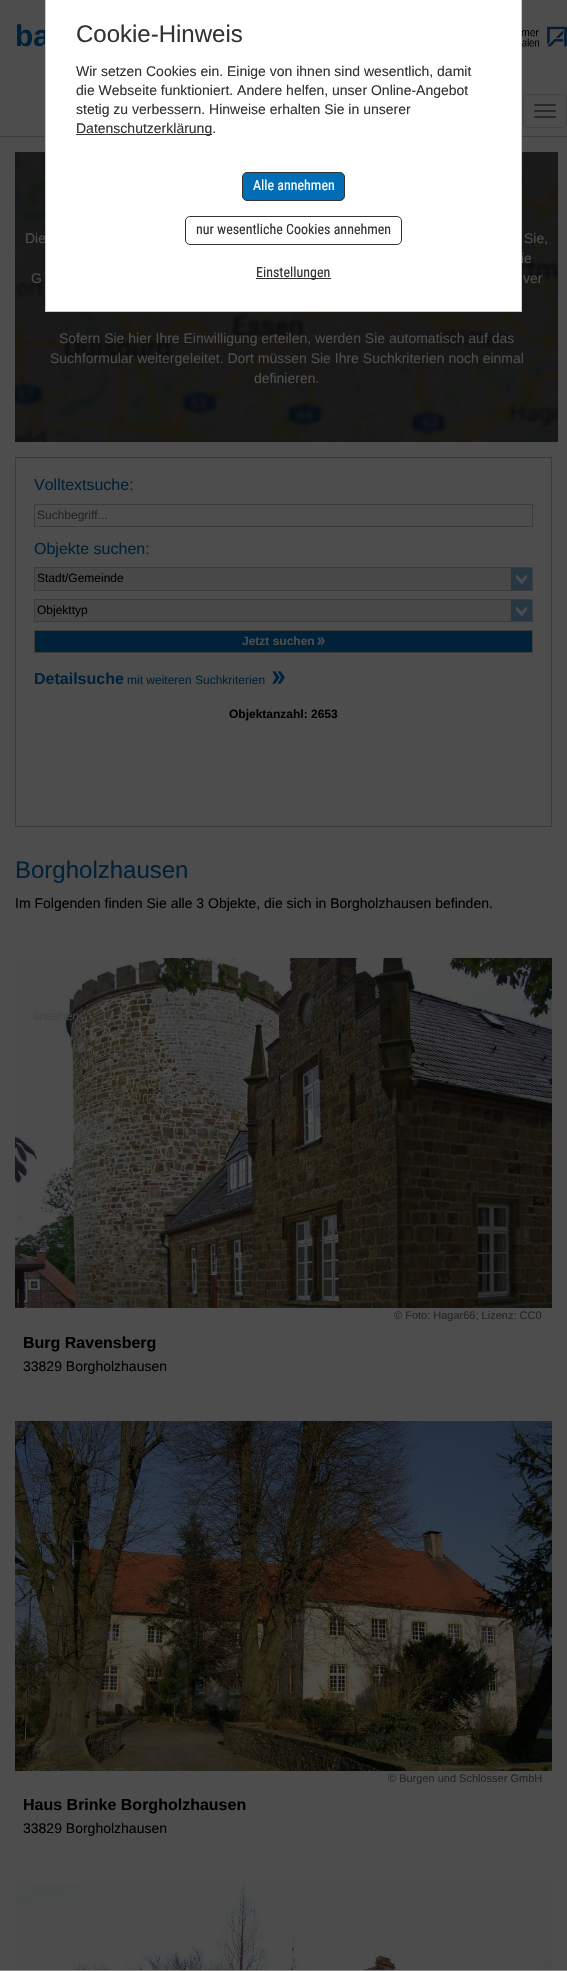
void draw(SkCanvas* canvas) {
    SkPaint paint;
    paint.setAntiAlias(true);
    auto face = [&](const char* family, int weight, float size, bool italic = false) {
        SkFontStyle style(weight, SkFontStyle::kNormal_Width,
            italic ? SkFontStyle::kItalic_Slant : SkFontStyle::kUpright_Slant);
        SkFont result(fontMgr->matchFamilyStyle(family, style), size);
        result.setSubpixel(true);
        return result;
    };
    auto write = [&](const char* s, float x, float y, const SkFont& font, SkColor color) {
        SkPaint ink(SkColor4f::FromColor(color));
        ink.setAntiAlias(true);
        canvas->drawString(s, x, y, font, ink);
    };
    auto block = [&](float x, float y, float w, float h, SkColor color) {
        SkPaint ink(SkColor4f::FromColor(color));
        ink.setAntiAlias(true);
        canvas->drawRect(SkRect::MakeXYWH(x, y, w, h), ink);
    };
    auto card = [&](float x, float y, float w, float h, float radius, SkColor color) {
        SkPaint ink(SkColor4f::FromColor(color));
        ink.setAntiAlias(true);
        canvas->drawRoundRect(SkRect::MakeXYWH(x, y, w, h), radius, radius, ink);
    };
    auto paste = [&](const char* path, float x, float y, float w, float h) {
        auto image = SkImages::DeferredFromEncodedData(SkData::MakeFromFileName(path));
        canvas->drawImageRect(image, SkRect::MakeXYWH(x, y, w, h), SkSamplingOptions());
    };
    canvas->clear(SkColorSetRGB(77, 77, 77));
    auto kFont1 = face("Liberation Sans", 700, 30);
    write("ba", 15, 46, kFont1, SkColorSetRGB(0, 33, 55));
    paste("pic1.png", 522, 26, 45, 21);
    block(0, 1970, 567, 1, SkColorSetRGB(136, 136, 136));
    block(0, 136, 567, 1, SkColorSetRGB(61, 61, 61));
    paste("pic2.png", 15, 152, 543, 290);
    block(46, 0, 475, 311, SK_ColorWHITE);
    auto kFont2 = face("Liberation Sans", 400, 14);
    write("ie", 521, 263, kFont2, SkColorSetRGB(77, 77, 77));
    block(521, 0, 1, 312, SkColorSetRGB(204, 204, 204));
    block(45, 311, 477, 1, SkColorSetRGB(204, 204, 204));
    write("Die", 25, 243, kFont2, SkColorSetRGB(77, 77, 77));
    block(45, 0, 1, 312, SkColorSetRGB(204, 204, 204));
    auto kFont3 = face("Liberation Sans", 400, 24);
    write("Cookie-Hinweis", 76, 42, kFont3, SkColorSetRGB(51, 51, 51));
    write("Wir setzen Cookies ein. Einige von ihnen sind wesentlich, damit", 76, 76, kFont2, SkColorSetRGB(51, 51, 51));
    write("die Webseite funktioniert. Andere helfen, unser Online-Angebot", 76, 95, kFont2, SkColorSetRGB(51, 51, 51));
    write("stetig zu verbessern. Hinweise erhalten Sie in unserer", 76, 114, kFont2, SkColorSetRGB(51, 51, 51));
    block(76, 134, 136, 1, SkColorSetRGB(51, 51, 51));
    write("Datenschutzerklärung.", 76, 133, kFont2, SkColorSetRGB(51, 51, 51));
    paint.setColor(SkColorSetRGB(0, 110, 182));
    canvas->drawRoundRect(SkRect::MakeXYWH(242.5f, 172.5f, 102, 28), 4.5f, 4.5f, paint);
    paint.setStyle(SkPaint::kStroke_Style);
    paint.setStrokeWidth(1);
    paint.setColor(SkColorSetRGB(51, 51, 51));
    canvas->drawRoundRect(SkRect::MakeXYWH(242.5f, 172.5f, 102, 28), 4.5f, 4.5f, paint);
    auto kFont4 = face("Roboto Condensed", 400, 14);
    write("Alle annehmen", 253, 190, kFont4, SK_ColorWHITE);
    canvas->drawRoundRect(SkRect::MakeXYWH(185.5f, 216.5f, 216, 28), 4.5f, 4.5f, paint);
    write("nur wesentliche Cookies annehmen", 196, 234, kFont4, SkColorSetRGB(51, 51, 51));
    block(256, 278, 75, 1, SkColorSetRGB(51, 51, 51));
    write("Einstellungen", 256, 277, kFont4, SkColorSetRGB(51, 51, 51));
    paint.setColor(SkColorSetRGB(66, 66, 66));
    canvas->drawRoundRect(SkRect::MakeXYWH(523.5f, 94.5f, 43, 33), 3.5f, 3.5f, paint);
    card(534, 104, 22, 2, 1, SkColorSetRGB(41, 41, 41));
    card(534, 110, 22, 2, 1, SkColorSetRGB(41, 41, 41));
    card(534, 116, 22, 2, 1, SkColorSetRGB(41, 41, 41));
    write("Sie,", 524, 243, kFont2, SkColorSetRGB(77, 77, 77));
    write("G", 31, 283, kFont2, SkColorSetRGB(77, 77, 77));
    write("ver", 523, 283, kFont2, SkColorSetRGB(77, 77, 77));
    write("Sofern Sie hier Ihre Einwilligung erteilen, werden Sie automatisch auf das", 59, 343, kFont2, SkColorSetRGB(77, 77, 77));
    write("Suchformular weitergeleitet. Dort müssen Sie Ihre Suchkriterien noch einmal", 50, 363, kFont2, SkColorSetRGB(77, 77, 77));
    write("definieren.", 254, 383, kFont2, SkColorSetRGB(77, 77, 77));
    paint.setColor(SkColorSetRGB(60, 59, 59));
    canvas->drawRect(SkRect::MakeXYWH(15.5f, 457.5f, 536, 369), paint);
    auto kFont5 = face("Liberation Sans", 400, 16);
    write("Volltextsuche:", 34, 490, kFont5, SkColorSetRGB(0, 33, 55));
    canvas->drawRect(SkRect::MakeXYWH(34.5f, 504.5f, 498, 22), paint);
    auto kFont6 = face("Liberation Sans", 400, 12);
    write("Suchbegriff...", 37, 519, kFont6, SkColorSetRGB(35, 35, 35));
    write("Objekte suchen:", 34, 554, kFont5, SkColorSetRGB(0, 33, 55));
    block(35, 568, 476, 22, SkColorSetRGB(72, 72, 72));
    paste("pic3.png", 511, 568, 21, 22);
    canvas->drawRect(SkRect::MakeXYWH(34.5f, 567.5f, 498, 23), paint);
    write("Stadt/Gemeinde", 37, 582, kFont6, SK_ColorBLACK);
    block(35, 600, 476, 21, SkColorSetRGB(72, 72, 72));
    paste("pic4.png", 511, 600, 21, 21);
    canvas->drawRect(SkRect::MakeXYWH(34.5f, 599.5f, 498, 22), paint);
    write("Objekttyp", 37, 614, kFont6, SK_ColorBLACK);
    paint.setStyle(SkPaint::kFill_Style);
    paint.setColor(SkColorSetRGB(0, 33, 55));
    canvas->drawRect(SkRect::MakeXYWH(34.5f, 630.5f, 498, 22), paint);
    paint.setStyle(SkPaint::kStroke_Style);
    paint.setColor(SkColorSetRGB(60, 59, 59));
    canvas->drawRect(SkRect::MakeXYWH(34.5f, 630.5f, 498, 22), paint);
    auto kFont7 = face("Liberation Sans", 700, 12);
    write("Jetzt suchen", 242, 645, kFont7, SkColorSetRGB(77, 77, 77));
    paste("pic5.png", 317, 637, 8, 8);
    auto kFont8 = face("Liberation Sans", 700, 16);
    write("Detailsuche", 34, 684, kFont8, SkColorSetRGB(0, 33, 55));
    write("mit weiteren Suchkriterien", 127, 684, kFont6, SkColorSetRGB(0, 33, 55));
    paste("pic6.png", 272, 671, 13, 13);
    write("Objektanzahl: 2653", 229, 718, kFont7, SK_ColorBLACK);
    write("Borgholzhausen", 15, 878, kFont3, SkColorSetRGB(0, 33, 55));
    write("Im Folgenden finden Sie alle 3 Objekte, die sich in Borgholzhausen befinden.", 15, 908, kFont2, SK_ColorBLACK);
    paste("pic7.png", 15, 958, 537, 350);
    write("ansehen", 33, 1020, kFont6, SkColorSetRGB(65, 65, 65));
    auto kFont9 = face("Liberation Sans", 400, 11);
    write("© Foto: Hagar66; Lizenz: CC0", 394, 1319, kFont9, SkColorSetRGB(35, 35, 35));
    write("Burg Ravensberg", 23, 1348, kFont8, SK_ColorBLACK);
    write("33829 Borgholzhausen", 23, 1371, kFont2, SK_ColorBLACK);
    paste("pic8.png", 15, 1421, 537, 350);
    write("m", 33, 1447, kFont6, SkColorSetRGB(35, 35, 35));
    write("a", 33, 1482, kFont6, SkColorSetRGB(28, 29, 26));
    write("n", 72, 1482, kFont6, SkColorSetRGB(28, 29, 26));
    write("© Burgen und Schlösser GmbH", 388, 1782, kFont9, SkColorSetRGB(35, 35, 35));
    write("Haus Brinke Borgholzhausen", 23, 1810, kFont8, SK_ColorBLACK);
    write("33829 Borgholzhausen", 23, 1833, kFont2, SK_ColorBLACK);
    paste("pic9.png", 15, 1883, 537, 87);
}
